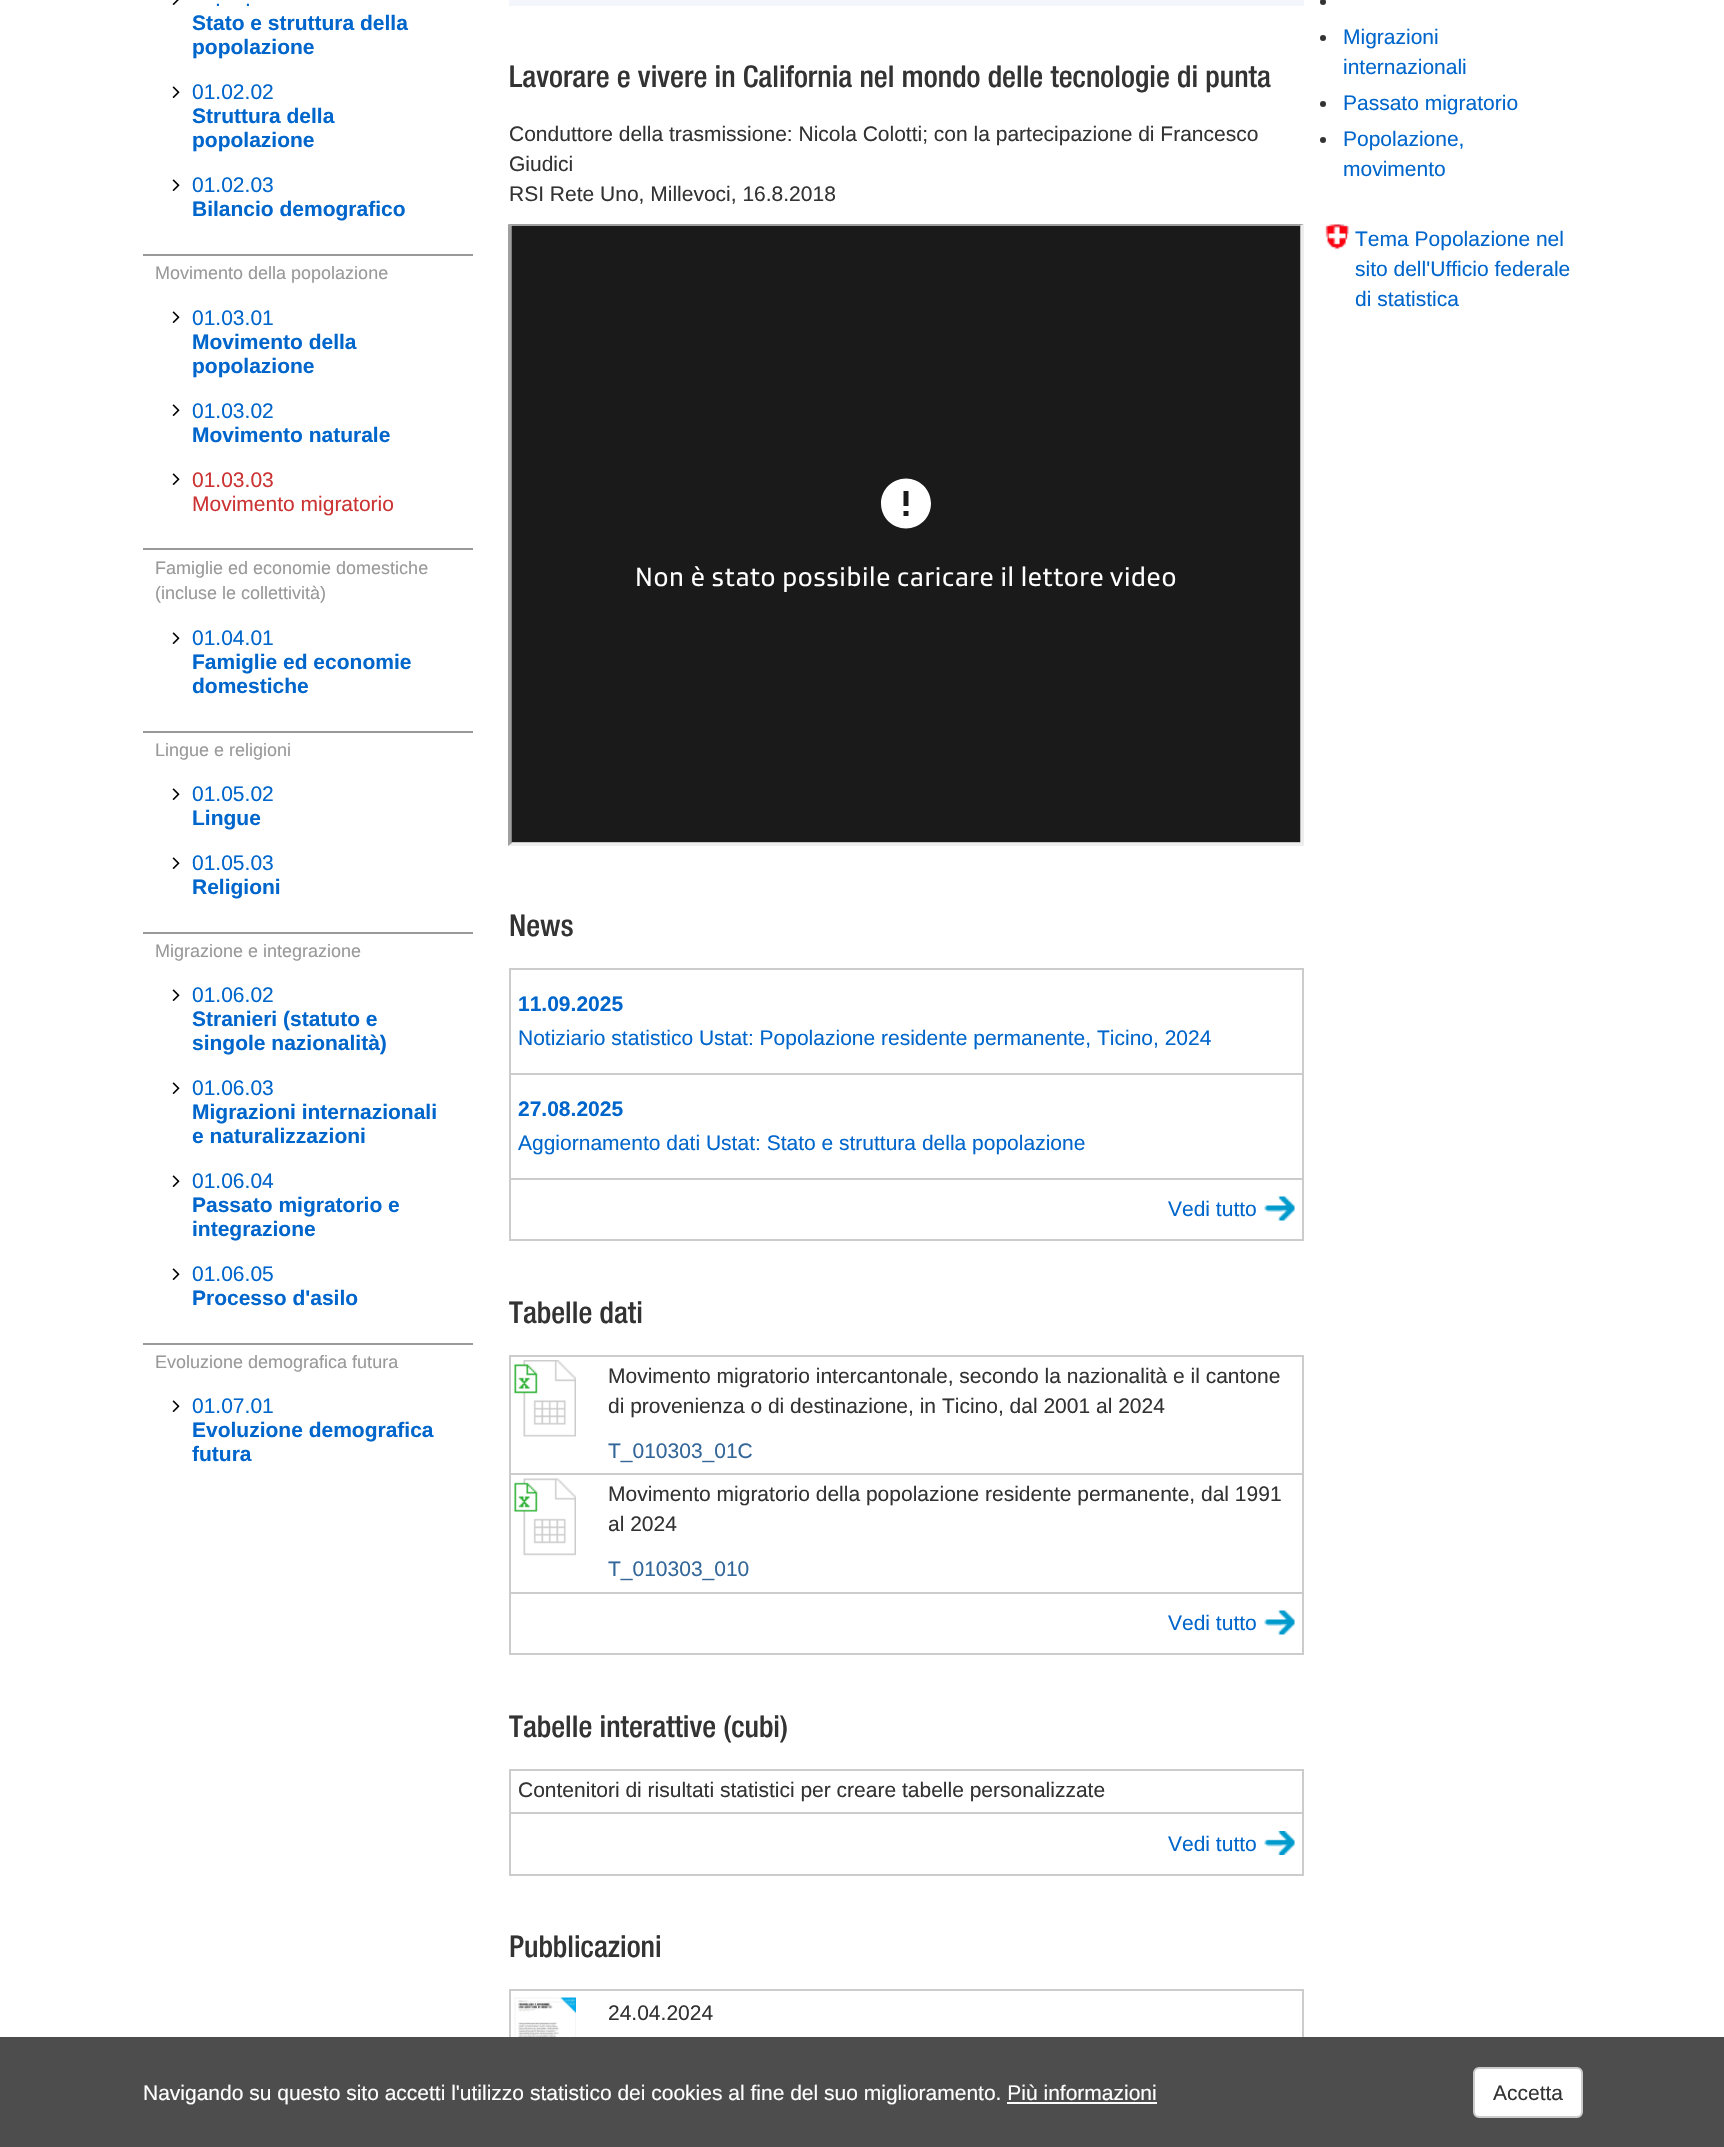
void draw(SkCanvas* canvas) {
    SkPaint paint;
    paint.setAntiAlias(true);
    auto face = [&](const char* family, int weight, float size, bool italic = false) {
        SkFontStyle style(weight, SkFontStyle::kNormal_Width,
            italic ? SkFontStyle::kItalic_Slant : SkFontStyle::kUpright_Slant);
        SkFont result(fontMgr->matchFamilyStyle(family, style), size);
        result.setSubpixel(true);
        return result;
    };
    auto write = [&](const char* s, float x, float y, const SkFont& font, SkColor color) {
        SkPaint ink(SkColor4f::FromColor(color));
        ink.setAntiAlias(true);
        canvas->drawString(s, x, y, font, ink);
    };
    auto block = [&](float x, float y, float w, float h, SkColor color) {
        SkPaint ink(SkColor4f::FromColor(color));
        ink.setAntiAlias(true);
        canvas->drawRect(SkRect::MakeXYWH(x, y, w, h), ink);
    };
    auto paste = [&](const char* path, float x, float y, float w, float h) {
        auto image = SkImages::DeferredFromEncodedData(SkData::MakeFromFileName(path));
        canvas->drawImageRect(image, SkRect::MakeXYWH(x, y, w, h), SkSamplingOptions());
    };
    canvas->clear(SK_ColorWHITE);
    paste("pic1.png", 172, 0, 7, 5);
    auto kFont1 = face("Liberation Sans", 400, 21);
    write(".", 215, 6, kFont1, SkColorSetRGB(0, 102, 204));
    write(".", 245, 6, kFont1, SkColorSetRGB(0, 102, 204));
    auto kFont2 = face("Liberation Sans", 700, 21);
    write("Stato e struttura della", 192, 30, kFont2, SkColorSetRGB(0, 102, 204));
    write("popolazione", 192, 54, kFont2, SkColorSetRGB(0, 102, 204));
    paste("pic2.png", 172, 86, 8, 12);
    write("01.02.02", 192, 99, kFont1, SkColorSetRGB(0, 102, 204));
    write("Struttura della", 192, 123, kFont2, SkColorSetRGB(0, 102, 204));
    write("popolazione", 192, 147, kFont2, SkColorSetRGB(0, 102, 204));
    paste("pic2.png", 172, 179, 8, 12);
    write("01.02.03", 192, 192, kFont1, SkColorSetRGB(0, 102, 204));
    write("Bilancio demografico", 192, 216, kFont2, SkColorSetRGB(0, 102, 204));
    block(143, 254, 330, 2, SkColorSetRGB(153, 153, 153));
    auto kFont3 = face("Liberation Sans", 400, 18);
    write("Movimento della popolazione", 155, 279, kFont3, SkColorSetRGB(153, 153, 153));
    paste("pic2.png", 172, 311, 8, 12);
    write("01.03.01", 192, 325, kFont1, SkColorSetRGB(0, 102, 204));
    write("Movimento della", 192, 349, kFont2, SkColorSetRGB(0, 102, 204));
    write("popolazione", 192, 373, kFont2, SkColorSetRGB(0, 102, 204));
    paste("pic2.png", 172, 404, 8, 12);
    write("01.03.02", 192, 418, kFont1, SkColorSetRGB(0, 102, 204));
    write("Movimento naturale", 192, 442, kFont2, SkColorSetRGB(0, 102, 204));
    paste("pic2.png", 172, 473, 8, 12);
    write("01.03.03", 192, 487, kFont1, SkColorSetRGB(204, 51, 51));
    write("Movimento migratorio", 192, 511, kFont1, SkColorSetRGB(204, 51, 51));
    block(143, 548, 330, 2, SkColorSetRGB(153, 153, 153));
    write("Famiglie ed economie domestiche", 155, 574, kFont3, SkColorSetRGB(153, 153, 153));
    write("(incluse le collettività)", 155, 599, kFont3, SkColorSetRGB(153, 153, 153));
    paste("pic2.png", 172, 632, 8, 12);
    write("01.04.01", 192, 645, kFont1, SkColorSetRGB(0, 102, 204));
    write("Famiglie ed economie", 192, 669, kFont2, SkColorSetRGB(0, 102, 204));
    write("domestiche", 192, 693, kFont2, SkColorSetRGB(0, 102, 204));
    block(143, 731, 330, 2, SkColorSetRGB(153, 153, 153));
    write("Lingue e religioni", 155, 756, kFont3, SkColorSetRGB(153, 153, 153));
    paste("pic2.png", 172, 788, 8, 12);
    write("01.05.02", 192, 801, kFont1, SkColorSetRGB(0, 102, 204));
    write("Lingue", 192, 825, kFont2, SkColorSetRGB(0, 102, 204));
    paste("pic2.png", 172, 857, 8, 12);
    write("01.05.03", 192, 870, kFont1, SkColorSetRGB(0, 102, 204));
    write("Religioni", 192, 894, kFont2, SkColorSetRGB(0, 102, 204));
    block(143, 932, 330, 2, SkColorSetRGB(153, 153, 153));
    write("Migrazione e integrazione", 155, 957, kFont3, SkColorSetRGB(153, 153, 153));
    paste("pic2.png", 172, 989, 8, 12);
    write("01.06.02", 192, 1002, kFont1, SkColorSetRGB(0, 102, 204));
    write("Stranieri (statuto e", 192, 1026, kFont2, SkColorSetRGB(0, 102, 204));
    write("singole nazionalità)", 192, 1050, kFont2, SkColorSetRGB(0, 102, 204));
    paste("pic2.png", 172, 1082, 8, 12);
    write("01.06.03", 192, 1095, kFont1, SkColorSetRGB(0, 102, 204));
    write("Migrazioni internazionali", 192, 1119, kFont2, SkColorSetRGB(0, 102, 204));
    write("e naturalizzazioni", 192, 1143, kFont2, SkColorSetRGB(0, 102, 204));
    paste("pic2.png", 172, 1175, 8, 12);
    write("01.06.04", 192, 1188, kFont1, SkColorSetRGB(0, 102, 204));
    write("Passato migratorio e", 192, 1212, kFont2, SkColorSetRGB(0, 102, 204));
    write("integrazione", 192, 1236, kFont2, SkColorSetRGB(0, 102, 204));
    paste("pic2.png", 172, 1268, 8, 12);
    write("01.06.05", 192, 1281, kFont1, SkColorSetRGB(0, 102, 204));
    write("Processo d'asilo", 192, 1305, kFont2, SkColorSetRGB(0, 102, 204));
    block(143, 1343, 330, 2, SkColorSetRGB(153, 153, 153));
    write("Evoluzione demografica futura", 155, 1368, kFont3, SkColorSetRGB(153, 153, 153));
    paste("pic2.png", 172, 1400, 8, 12);
    write("01.07.01", 192, 1413, kFont1, SkColorSetRGB(0, 102, 204));
    write("Evoluzione demografica", 192, 1437, kFont2, SkColorSetRGB(0, 102, 204));
    write("futura", 192, 1461, kFont2, SkColorSetRGB(0, 102, 204));
    block(509, 0, 795, 6, SkColorSetRGB(243, 247, 252));
    auto kFont4 = face("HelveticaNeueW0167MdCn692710", 400, 30);
    write("Lavorare e vivere in California nel mondo delle tecnologie di punta", 509, 87, kFont4, SkColorSetRGB(51, 51, 51));
    write("Conduttore della trasmissione: Nicola Colotti; con la partecipazione di Francesco", 509, 141, kFont1, SkColorSetRGB(51, 51, 51));
    write("Giudici", 509, 171, kFont1, SkColorSetRGB(51, 51, 51));
    write("RSI Rete Uno, Millevoci, 16.8.2018", 509, 201, kFont1, SkColorSetRGB(51, 51, 51));
    paint.setColor(SkColorSetRGB(159, 159, 159));
    canvas->drawPath(SkPathBuilder().moveTo(508, 224).lineTo(1304, 224).lineTo(1300, 226).lineTo(512, 226).close().detach(), paint);
    paint.setColor(SkColorSetRGB(238, 238, 238));
    canvas->drawPath(SkPathBuilder().moveTo(1304, 224).lineTo(1304, 846).lineTo(1300, 843).lineTo(1300, 226).close().detach(), paint);
    canvas->drawPath(SkPathBuilder().moveTo(1304, 846).lineTo(508, 846).lineTo(512, 843).lineTo(1300, 843).close().detach(), paint);
    paint.setColor(SkColorSetRGB(159, 159, 159));
    canvas->drawPath(SkPathBuilder().moveTo(508, 846).lineTo(508, 224).lineTo(512, 226).lineTo(512, 843).close().detach(), paint);
    paste("pic3.png", 511, 226, 790, 617);
    write("News", 509, 936, kFont4, SkColorSetRGB(51, 51, 51));
    block(1302, 968, 2, 273, SkColorSetRGB(204, 204, 204));
    block(509, 1239, 795, 2, SkColorSetRGB(204, 204, 204));
    block(509, 968, 2, 273, SkColorSetRGB(204, 204, 204));
    block(510, 968, 792, 2, SkColorSetRGB(204, 204, 204));
    write("11.09.2025", 518, 1011, kFont2, SkColorSetRGB(0, 102, 204));
    write("Notiziario statistico Ustat: Popolazione residente permanente, Ticino, 2024", 518, 1045, kFont1, SkColorSetRGB(0, 102, 204));
    block(510, 1073, 792, 2, SkColorSetRGB(204, 204, 204));
    write("27.08.2025", 518, 1116, kFont2, SkColorSetRGB(0, 102, 204));
    write("Aggiornamento dati Ustat: Stato e struttura della popolazione", 518, 1150, kFont1, SkColorSetRGB(0, 102, 204));
    block(510, 1178, 792, 2, SkColorSetRGB(204, 204, 204));
    write("Vedi tutto", 1168, 1216, kFont1, SkColorSetRGB(0, 102, 204));
    paste("pic4.png", 1264, 1196, 31, 25);
    write("Tabelle dati", 509, 1323, kFont4, SkColorSetRGB(51, 51, 51));
    block(1302, 1355, 2, 300, SkColorSetRGB(204, 204, 204));
    block(509, 1653, 795, 2, SkColorSetRGB(204, 204, 204));
    block(509, 1355, 2, 300, SkColorSetRGB(204, 204, 204));
    block(510, 1355, 792, 2, SkColorSetRGB(204, 204, 204));
    paste("pic5.png", 514, 1360, 62, 77);
    write("Movimento migratorio intercantonale, secondo la nazionalità e il cantone", 608, 1383, kFont1, SkColorSetRGB(51, 51, 51));
    write("di provenienza o di destinazione, in Ticino, dal 2001 al 2024", 608, 1413, kFont1, SkColorSetRGB(51, 51, 51));
    write("T_010303_01C", 608, 1458, kFont1, SkColorSetRGB(51, 102, 153));
    block(510, 1473, 792, 2, SkColorSetRGB(204, 204, 204));
    paste("pic6.png", 514, 1478, 62, 78);
    write("Movimento migratorio della popolazione residente permanente, dal 1991", 608, 1501, kFont1, SkColorSetRGB(51, 51, 51));
    write("al 2024", 608, 1531, kFont1, SkColorSetRGB(51, 51, 51));
    write("T_010303_010", 608, 1576, kFont1, SkColorSetRGB(51, 102, 153));
    block(510, 1592, 792, 2, SkColorSetRGB(204, 204, 204));
    write("Vedi tutto", 1168, 1630, kFont1, SkColorSetRGB(0, 102, 204));
    paste("pic4.png", 1264, 1610, 31, 25);
    write("Tabelle interattive (cubi)", 509, 1737, kFont4, SkColorSetRGB(51, 51, 51));
    block(1302, 1769, 2, 106, SkColorSetRGB(204, 204, 204));
    block(509, 1874, 795, 2, SkColorSetRGB(204, 204, 204));
    block(509, 1769, 2, 106, SkColorSetRGB(204, 204, 204));
    block(510, 1769, 792, 2, SkColorSetRGB(204, 204, 204));
    write("Contenitori di risultati statistici per creare tabelle personalizzate", 518, 1797, kFont1, SkColorSetRGB(51, 51, 51));
    block(510, 1812, 792, 2, SkColorSetRGB(204, 204, 204));
    write("Vedi tutto", 1168, 1851, kFont1, SkColorSetRGB(0, 102, 204));
    paste("pic7.png", 1264, 1831, 31, 24);
    write("Pubblicazioni", 509, 1957, kFont4, SkColorSetRGB(51, 51, 51));
    block(1302, 1989, 2, 48, SkColorSetRGB(204, 204, 204));
    block(509, 1989, 2, 48, SkColorSetRGB(204, 204, 204));
    block(510, 1989, 792, 2, SkColorSetRGB(204, 204, 204));
    paste("pic8.png", 514, 1997, 62, 40);
    write("24.04.2024", 608, 2020, kFont1, SkColorSetRGB(51, 51, 51));
    paint.setColor(SkColorSetRGB(51, 51, 51));
    canvas->drawCircle(1323, 2, 3, paint);
    canvas->drawCircle(1323, 38, 3, paint);
    write("Migrazioni", 1343, 44, kFont1, SkColorSetRGB(0, 102, 204));
    write("internazionali", 1343, 74, kFont1, SkColorSetRGB(0, 102, 204));
    canvas->drawCircle(1323, 104, 3, paint);
    write("Passato migratorio", 1343, 110, kFont1, SkColorSetRGB(0, 102, 204));
    canvas->drawCircle(1323, 140, 3, paint);
    write("Popolazione,", 1343, 146, kFont1, SkColorSetRGB(0, 102, 204));
    write("movimento", 1343, 176, kFont1, SkColorSetRGB(0, 102, 204));
    paste("pic9.png", 1325, 224, 24, 26);
    write("Tema Popolazione nel", 1355, 246, kFont1, SkColorSetRGB(0, 102, 204));
    write("sito dell'Ufficio federale", 1355, 276, kFont1, SkColorSetRGB(0, 102, 204));
    write("di statistica", 1355, 306, kFont1, SkColorSetRGB(0, 102, 204));
    block(0, 2037, 1724, 110, SkColorSetRGB(77, 77, 77));
    write("Navigando su questo sito accetti l'utilizzo statistico dei cookies al fine del suo miglioramento. Più informazioni", 143, 2100, kFont1, SK_ColorWHITE);
    block(1007, 2102, 150, 2, SK_ColorWHITE);
    paint.setColor(SK_ColorWHITE);
    canvas->drawRoundRect(SkRect::MakeXYWH(1474, 2068, 108, 49), 5, 5, paint);
    paint.setStyle(SkPaint::kStroke_Style);
    paint.setStrokeWidth(2);
    paint.setColor(SkColorSetRGB(204, 204, 204));
    canvas->drawRoundRect(SkRect::MakeXYWH(1474, 2068, 108, 49), 5, 5, paint);
    write("Accetta", 1493, 2100, kFont1, SkColorSetRGB(51, 51, 51));
}
